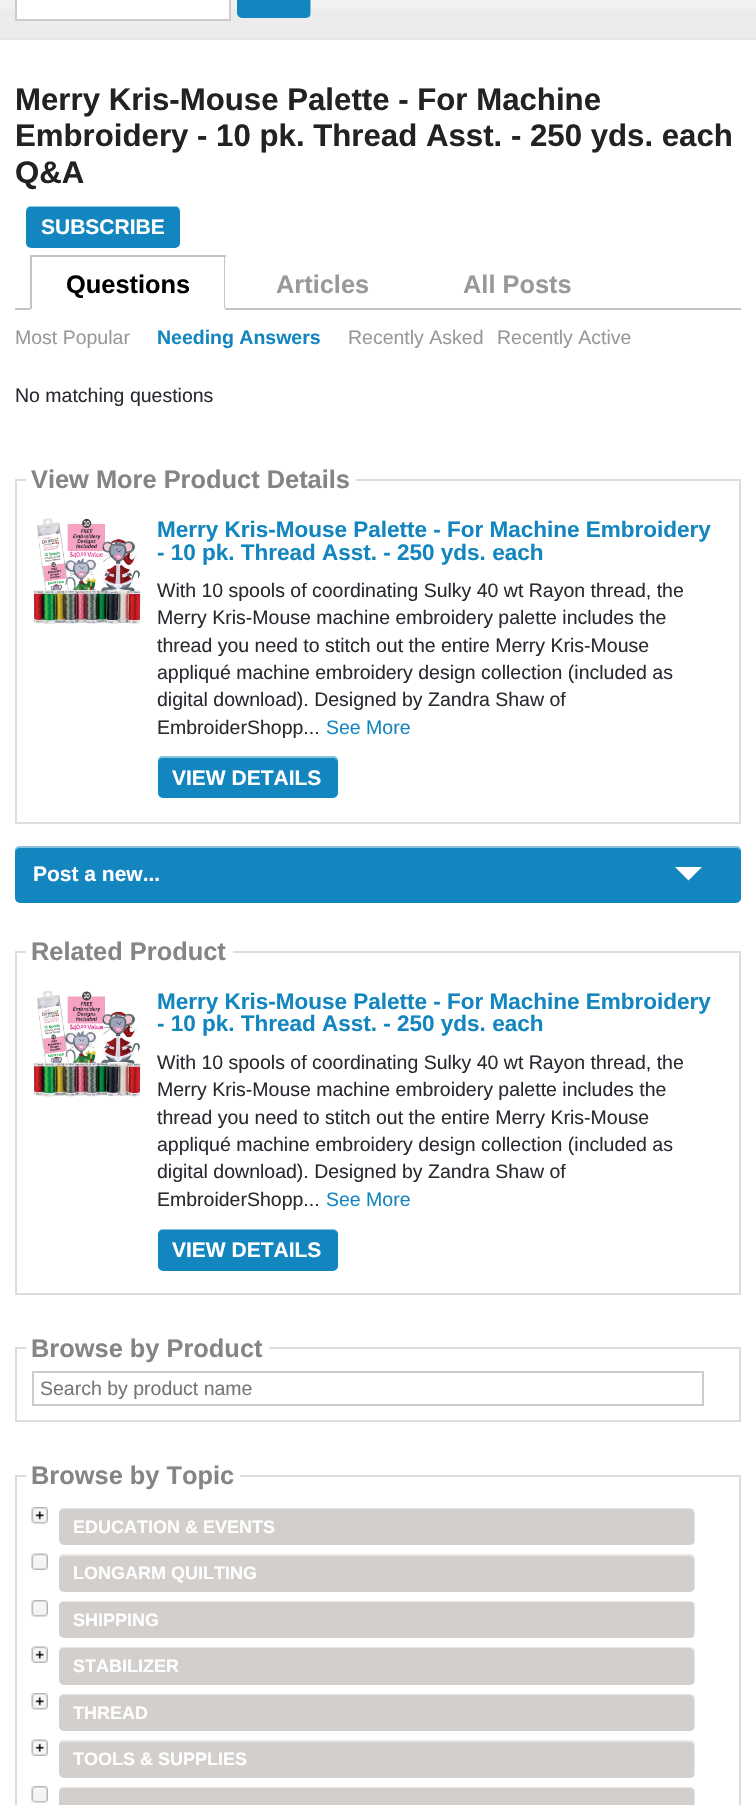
void draw(SkCanvas* canvas) {
    SkPaint paint;
    paint.setAntiAlias(true);
    auto face = [&](const char* family, int weight, float size, bool italic = false) {
        SkFontStyle style(weight, SkFontStyle::kNormal_Width,
            italic ? SkFontStyle::kItalic_Slant : SkFontStyle::kUpright_Slant);
        SkFont result(fontMgr->matchFamilyStyle(family, style), size);
        result.setSubpixel(true);
        return result;
    };
    auto write = [&](const char* s, float x, float y, const SkFont& font, SkColor color) {
        SkPaint ink(SkColor4f::FromColor(color));
        ink.setAntiAlias(true);
        canvas->drawString(s, x, y, font, ink);
    };
    auto block = [&](float x, float y, float w, float h, SkColor color) {
        SkPaint ink(SkColor4f::FromColor(color));
        ink.setAntiAlias(true);
        canvas->drawRect(SkRect::MakeXYWH(x, y, w, h), ink);
    };
    auto card = [&](float x, float y, float w, float h, float radius, SkColor color) {
        SkPaint ink(SkColor4f::FromColor(color));
        ink.setAntiAlias(true);
        canvas->drawRoundRect(SkRect::MakeXYWH(x, y, w, h), radius, radius, ink);
    };
    auto paste = [&](const char* path, float x, float y, float w, float h) {
        auto image = SkImages::DeferredFromEncodedData(SkData::MakeFromFileName(path));
        canvas->drawImageRect(image, SkRect::MakeXYWH(x, y, w, h), SkSamplingOptions());
    };
    canvas->clear(SK_ColorWHITE);
    block(0, 9, 756, 29, SkColorSetRGB(236, 236, 236));
    block(0, 0, 756, 9, SkColorSetRGB(241, 241, 241));
    block(0, 38, 756, 2, SkColorSetRGB(230, 230, 230));
    paint.setColor(SK_ColorWHITE);
    canvas->drawRect(SkRect::MakeXYWH(16, -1, 214, 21), paint);
    paint.setStyle(SkPaint::kStroke_Style);
    paint.setStrokeWidth(2);
    paint.setColor(SkColorSetRGB(204, 204, 204));
    canvas->drawRect(SkRect::MakeXYWH(16, -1, 214, 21), paint);
    card(237, -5, 74, 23, 5, SkColorSetRGB(19, 134, 191));
    paint.setStyle(SkPaint::kFill_Style);
    paint.setColor(SkColorSetARGB(128, 255, 255, 255));
    canvas->drawPath(SkPathBuilder().moveTo(242, -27).lineTo(285, -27).cubicTo(311, -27, 310, -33, 310, -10).lineTo(310, 16).cubicTo(311, 15, 311, 14, 311, 13).lineTo(311, -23).cubicTo(311, -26, 309, -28, 306, -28).lineTo(242, -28).cubicTo(239, -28, 237, -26, 237, -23).lineTo(237, -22).cubicTo(237, -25, 239, -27, 242, -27).close().detach(), paint);
    auto kFont1 = face("Liberation Sans", 700, 31.2f);
    write("Merry Kris-Mouse Palette - For Machine", 15, 110, kFont1, SkColorSetRGB(34, 34, 34));
    write("Embroidery - 10 pk. Thread Asst. - 250 yds. each", 15, 146, kFont1, SkColorSetRGB(34, 34, 34));
    write("Q&A", 15, 183, kFont1, SkColorSetRGB(34, 34, 34));
    card(26, 206, 154, 42, 5, SkColorSetRGB(19, 134, 191));
    canvas->drawPath(SkPathBuilder().moveTo(30, 207).lineTo(176, 207).cubicTo(178, 207, 180, 209, 180, 212).lineTo(180, 211).cubicTo(180, 208, 178, 206, 175, 206).lineTo(31, 206).cubicTo(28, 206, 26, 208, 26, 211).lineTo(26, 212).cubicTo(26, 209, 28, 207, 30, 207).close().detach(), paint);
    auto kFont2 = face("Liberation Sans", 700, 21);
    write("SUBSCRIBE", 41, 234, kFont2, SK_ColorWHITE);
    block(30, 255, 195, 2, SkColorSetRGB(196, 196, 196));
    block(224, 255, 2, 54, SkColorSetRGB(196, 196, 196));
    block(224, 308, 1, 1, SK_ColorWHITE);
    block(30, 255, 2, 54, SkColorSetRGB(196, 196, 196));
    auto kFont3 = face("Liberation Sans", 700, 25.4f);
    write("Questions", 66, 293, kFont3, SK_ColorBLACK);
    block(225, 257, 1, 51, SK_ColorWHITE);
    block(225, 308, 516, 2, SkColorSetRGB(196, 196, 196));
    write("Articles", 276, 293, kFont3, SkColorSetRGB(153, 153, 153));
    write("All Posts", 463, 293, kFont3, SkColorSetRGB(153, 153, 153));
    block(15, 308, 15, 2, SkColorSetRGB(196, 196, 196));
    auto kFont4 = face("Liberation Sans", 400, 19.5f);
    write("Most Popular", 15, 344, kFont4, SkColorSetRGB(153, 153, 153));
    auto kFont5 = face("Liberation Sans", 700, 19.5f);
    write("Needing Answers", 157, 344, kFont5, SkColorSetRGB(19, 134, 191));
    write("Recently Asked", 348, 344, kFont4, SkColorSetRGB(153, 153, 153));
    write("Recently Active", 497, 344, kFont4, SkColorSetRGB(153, 153, 153));
    write("No matching questions", 15, 402, kFont4, SkColorSetRGB(40, 43, 48));
    paint.setStyle(SkPaint::kStroke_Style);
    paint.setColor(SkColorSetRGB(221, 221, 221));
    canvas->drawRect(SkRect::MakeXYWH(16, 480, 724, 343), paint);
    block(26, 479, 330, 2, SK_ColorWHITE);
    write("View More Product Details", 31, 488, kFont3, SkColorSetRGB(133, 133, 133));
    paste("pic1.png", 33, 518, 108, 106);
    auto kFont6 = face("Liberation Sans", 700, 22.5f);
    write("Merry Kris-Mouse Palette - For Machine Embroidery", 157, 537, kFont6, SkColorSetRGB(19, 134, 191));
    write("- 10 pk. Thread Asst. - 250 yds. each", 157, 560, kFont6, SkColorSetRGB(19, 134, 191));
    write("With 10 spools of coordinating Sulky 40 wt Rayon thread, the", 157, 597, kFont4, SkColorSetRGB(40, 43, 48));
    write("Merry Kris-Mouse machine embroidery palette includes the", 157, 624, kFont4, SkColorSetRGB(40, 43, 48));
    write("thread you need to stitch out the entire Merry Kris-Mouse", 157, 652, kFont4, SkColorSetRGB(40, 43, 48));
    write("appliqué machine embroidery design collection (included as", 157, 679, kFont4, SkColorSetRGB(40, 43, 48));
    write("digital download). Designed by Zandra Shaw of", 157, 706, kFont4, SkColorSetRGB(40, 43, 48));
    write("EmbroiderShopp...", 157, 734, kFont4, SkColorSetRGB(40, 43, 48));
    write("See More", 326, 734, kFont4, SkColorSetRGB(19, 134, 191));
    card(158, 756, 180, 42, 5, SkColorSetRGB(19, 134, 191));
    paint.setStyle(SkPaint::kFill_Style);
    paint.setColor(SkColorSetARGB(128, 255, 255, 255));
    canvas->drawPath(SkPathBuilder().moveTo(162, 758).lineTo(333, 758).cubicTo(335, 758, 338, 760, 338, 762).cubicTo(338, 759, 336, 756, 333, 756).lineTo(162, 756).cubicTo(159, 757, 158, 759, 158, 762).cubicTo(158, 760, 160, 758, 162, 758).close().detach(), paint);
    write("VIEW DETAILS", 172, 785, kFont2, SK_ColorWHITE);
    card(15, 846, 726, 57, 5, SkColorSetRGB(19, 134, 191));
    canvas->drawPath(SkPathBuilder().moveTo(20, 848).lineTo(736, 848).cubicTo(739, 848, 741, 850, 741, 852).cubicTo(741, 849, 739, 846, 736, 846).lineTo(20, 846).cubicTo(17, 846, 15, 849, 15, 852).cubicTo(15, 850, 17, 848, 20, 848).close().detach(), paint);
    write("Post a new...", 33, 881, kFont2, SK_ColorWHITE);
    paint.setColor(SK_ColorWHITE);
    canvas->drawPath(SkPathBuilder().moveTo(675, 867).lineTo(702, 867).lineTo(688.5f, 880.5f).close().detach(), paint);
    paint.setStyle(SkPaint::kStroke_Style);
    paint.setColor(SkColorSetRGB(221, 221, 221));
    canvas->drawRect(SkRect::MakeXYWH(16, 952, 724, 342), paint);
    block(26, 951, 207, 2, SK_ColorWHITE);
    write("Related Product", 31, 960, kFont3, SkColorSetRGB(133, 133, 133));
    paste("pic2.png", 33, 990, 108, 107);
    write("Merry Kris-Mouse Palette - For Machine Embroidery", 157, 1009, kFont6, SkColorSetRGB(19, 134, 191));
    write("- 10 pk. Thread Asst. - 250 yds. each", 157, 1031, kFont6, SkColorSetRGB(19, 134, 191));
    write("With 10 spools of coordinating Sulky 40 wt Rayon thread, the", 157, 1069, kFont4, SkColorSetRGB(40, 43, 48));
    write("Merry Kris-Mouse machine embroidery palette includes the", 157, 1096, kFont4, SkColorSetRGB(40, 43, 48));
    write("thread you need to stitch out the entire Merry Kris-Mouse", 157, 1124, kFont4, SkColorSetRGB(40, 43, 48));
    write("appliqué machine embroidery design collection (included as", 157, 1151, kFont4, SkColorSetRGB(40, 43, 48));
    write("digital download). Designed by Zandra Shaw of", 157, 1178, kFont4, SkColorSetRGB(40, 43, 48));
    write("EmbroiderShopp...", 157, 1206, kFont4, SkColorSetRGB(40, 43, 48));
    write("See More", 326, 1206, kFont4, SkColorSetRGB(19, 134, 191));
    card(158, 1229, 180, 42, 5, SkColorSetRGB(19, 134, 191));
    paint.setStyle(SkPaint::kFill_Style);
    paint.setColor(SkColorSetARGB(128, 255, 255, 255));
    canvas->drawPath(SkPathBuilder().moveTo(162, 1230).lineTo(333, 1230).cubicTo(335, 1230, 338, 1232, 338, 1234).cubicTo(338, 1231, 336, 1229, 333, 1229).lineTo(163, 1229).cubicTo(160, 1229, 158, 1231, 158, 1234).cubicTo(158, 1232, 160, 1230, 162, 1230).close().detach(), paint);
    write("VIEW DETAILS", 172, 1257, kFont2, SK_ColorWHITE);
    paint.setStyle(SkPaint::kStroke_Style);
    paint.setColor(SkColorSetRGB(221, 221, 221));
    canvas->drawRect(SkRect::MakeXYWH(16, 1348, 724, 73), paint);
    block(26, 1347, 243, 2, SK_ColorWHITE);
    write("Browse by Product", 31, 1357, kFont3, SkColorSetRGB(133, 133, 133));
    paint.setColor(SkColorSetRGB(204, 204, 204));
    canvas->drawRect(SkRect::MakeXYWH(33, 1372, 670, 33), paint);
    write("Search by product name", 40, 1395, kFont4, SkColorSetRGB(117, 117, 117));
    paint.setColor(SkColorSetRGB(221, 221, 221));
    canvas->drawRect(SkRect::MakeXYWH(16, 1476, 724, 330), paint);
    block(26, 1475, 214, 2, SK_ColorWHITE);
    write("Browse by Topic", 31, 1484, kFont3, SkColorSetRGB(133, 133, 133));
    paste("pic3.png", 31, 1507, 17, 17);
    card(59, 1508, 636, 37, 5, SkColorSetRGB(211, 207, 204));
    paint.setStyle(SkPaint::kFill_Style);
    paint.setColor(SkColorSetARGB(128, 255, 255, 255));
    canvas->drawPath(SkPathBuilder().moveTo(63, 1509).lineTo(690, 1509).cubicTo(692, 1509, 694, 1511, 694, 1514).lineTo(694, 1543).cubicTo(695, 1542, 695, 1541, 695, 1540).lineTo(695, 1513).cubicTo(695, 1510, 693, 1508, 690, 1508).lineTo(64, 1508).cubicTo(62, 1508, 61, 1509, 60, 1510).close().detach(), paint);
    auto kFont7 = face("Liberation Sans", 700, 18);
    write("EDUCATION & EVENTS", 73, 1533, kFont7, SK_ColorWHITE);
    paste("pic4.png", 31, 1553, 17, 17);
    card(59, 1554, 636, 38, 5, SkColorSetRGB(211, 207, 204));
    canvas->drawPath(SkPathBuilder().moveTo(63, 1556).lineTo(690, 1556).cubicTo(692, 1556, 694, 1558, 694, 1560).lineTo(694, 1588).lineTo(693, 1591).cubicTo(694, 1590, 695, 1588, 695, 1587).lineTo(695, 1559).cubicTo(695, 1556, 693, 1554, 690, 1554).lineTo(64, 1554).cubicTo(62, 1554, 60, 1556, 59, 1558).cubicTo(60, 1557, 62, 1556, 63, 1556).close().detach(), paint);
    write("LONGARM QUILTING", 73, 1579, kFont7, SK_ColorWHITE);
    paste("pic5.png", 31, 1600, 17, 17);
    card(59, 1601, 636, 37, 5, SkColorSetRGB(211, 207, 204));
    canvas->drawPath(SkPathBuilder().moveTo(63, 1602).lineTo(690, 1602).cubicTo(692, 1602, 694, 1604, 694, 1606).lineTo(694, 1636).cubicTo(695, 1635, 695, 1634, 695, 1633).lineTo(695, 1606).cubicTo(695, 1603, 693, 1601, 690, 1601).lineTo(64, 1601).cubicTo(62, 1601, 61, 1602, 60, 1603).close().detach(), paint);
    write("SHIPPING", 73, 1626, kFont7, SK_ColorWHITE);
    paste("pic6.png", 31, 1646, 17, 17);
    card(59, 1647, 636, 38, 5, SkColorSetRGB(211, 207, 204));
    canvas->drawPath(SkPathBuilder().moveTo(63, 1648).lineTo(690, 1648).cubicTo(692, 1648, 694, 1651, 694, 1653).lineTo(694, 1683).cubicTo(695, 1682, 695, 1681, 695, 1680).lineTo(695, 1652).cubicTo(695, 1649, 693, 1647, 690, 1647).lineTo(64, 1647).cubicTo(62, 1647, 60, 1648, 59, 1650).cubicTo(60, 1649, 62, 1648, 63, 1648).close().detach(), paint);
    write("STABILIZER", 73, 1672, kFont7, SK_ColorWHITE);
    paste("pic3.png", 31, 1693, 17, 17);
    card(59, 1694, 636, 37, 5, SkColorSetRGB(211, 207, 204));
    canvas->drawPath(SkPathBuilder().moveTo(63, 1695).lineTo(690, 1695).cubicTo(692, 1695, 694, 1697, 694, 1700).lineTo(694, 1729).cubicTo(695, 1728, 695, 1727, 695, 1726).lineTo(695, 1699).cubicTo(695, 1696, 693, 1694, 690, 1694).lineTo(64, 1694).cubicTo(62, 1694, 61, 1695, 60, 1696).close().detach(), paint);
    write("THREAD", 73, 1719, kFont7, SK_ColorWHITE);
    paste("pic6.png", 31, 1739, 17, 17);
    card(59, 1740, 636, 38, 5, SkColorSetRGB(211, 207, 204));
    canvas->drawPath(SkPathBuilder().moveTo(63, 1742).lineTo(690, 1742).cubicTo(692, 1742, 694, 1744, 694, 1746).lineTo(694, 1774).lineTo(693, 1777).cubicTo(694, 1776, 695, 1774, 695, 1773).lineTo(695, 1745).cubicTo(695, 1742, 693, 1740, 690, 1740).lineTo(64, 1740).cubicTo(62, 1740, 60, 1742, 59, 1744).cubicTo(60, 1743, 62, 1742, 63, 1742).close().detach(), paint);
    write("TOOLS & SUPPLIES", 73, 1765, kFont7, SK_ColorWHITE);
    paste("pic5.png", 31, 1786, 17, 17);
    card(59, 1787, 636, 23, 5, SkColorSetRGB(211, 207, 204));
    canvas->drawPath(SkPathBuilder().moveTo(63, 1788).lineTo(690, 1788).cubicTo(692, 1788, 694, 1790, 694, 1792).lineTo(694, 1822).cubicTo(695, 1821, 695, 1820, 695, 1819).lineTo(695, 1792).cubicTo(695, 1789, 693, 1787, 690, 1787).lineTo(64, 1787).cubicTo(62, 1787, 61, 1788, 60, 1789).close().detach(), paint);
}
